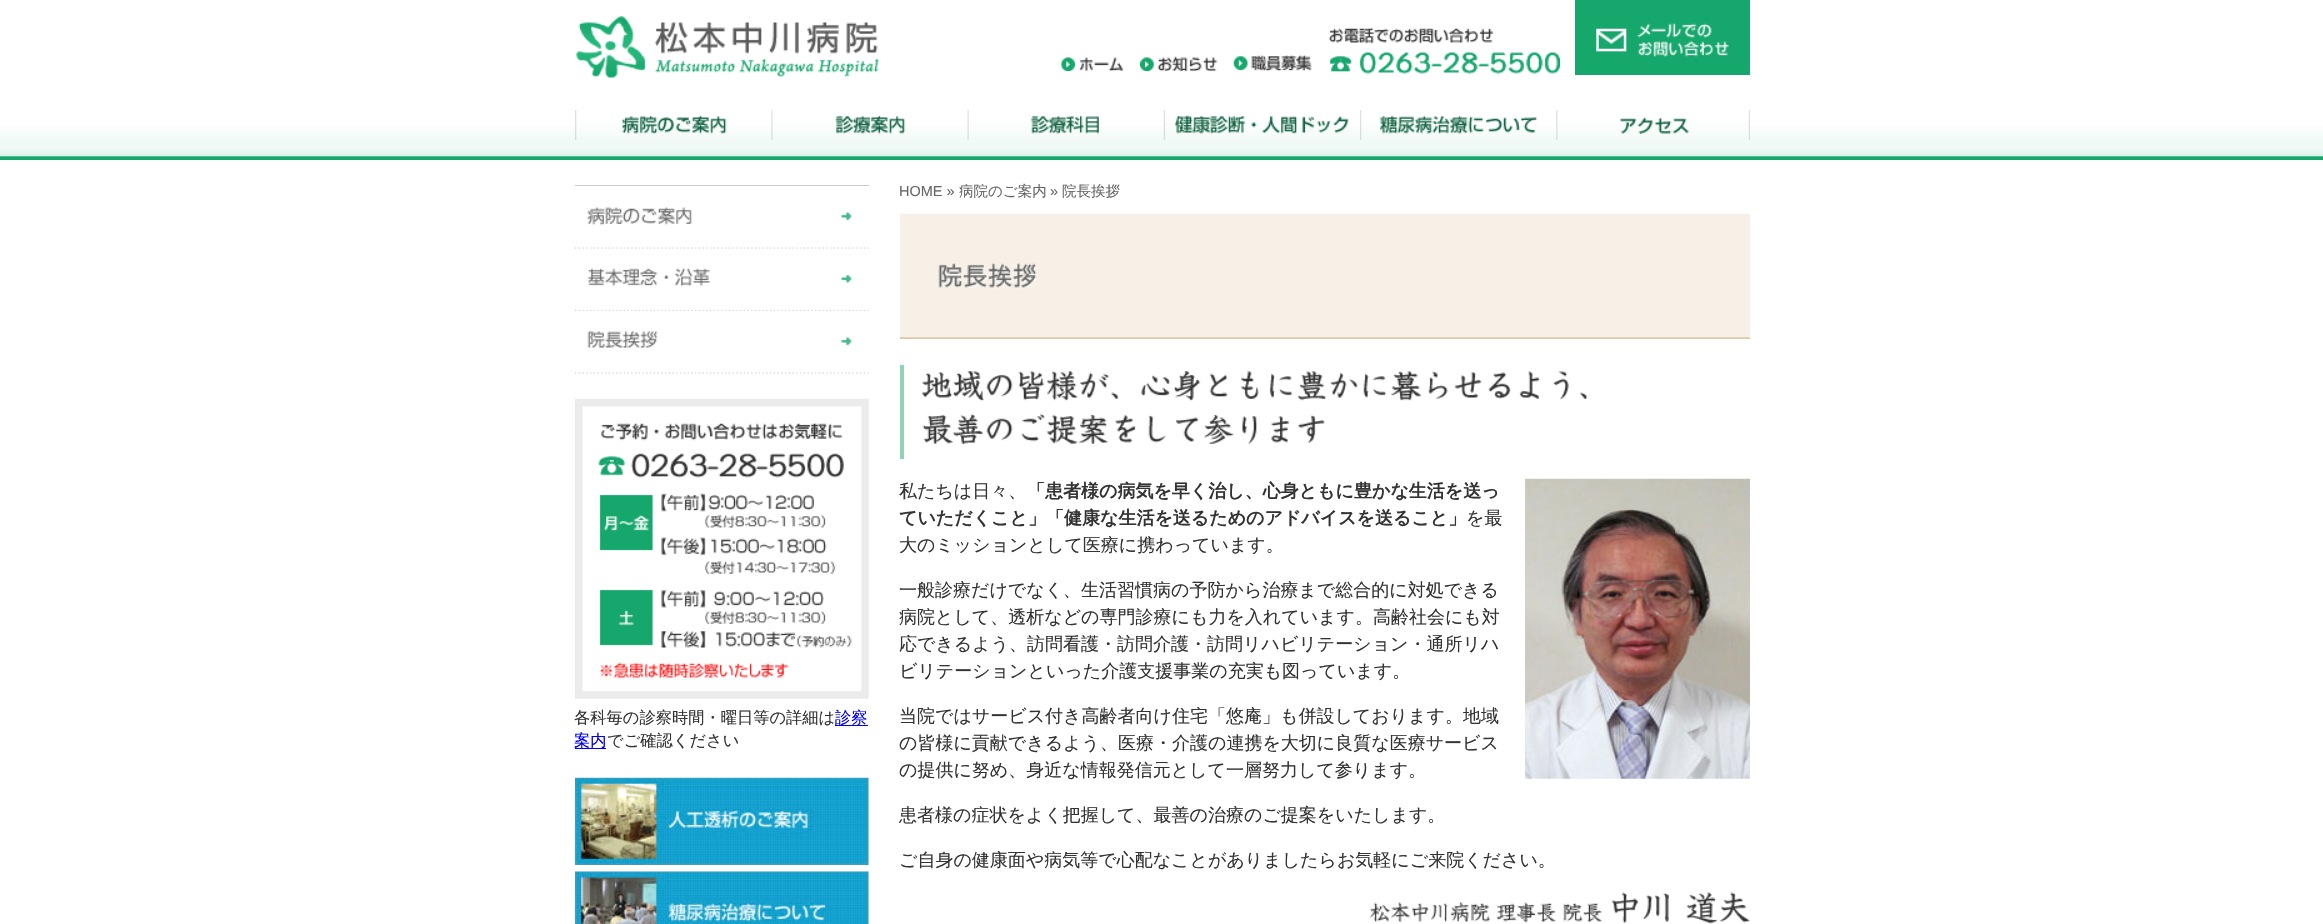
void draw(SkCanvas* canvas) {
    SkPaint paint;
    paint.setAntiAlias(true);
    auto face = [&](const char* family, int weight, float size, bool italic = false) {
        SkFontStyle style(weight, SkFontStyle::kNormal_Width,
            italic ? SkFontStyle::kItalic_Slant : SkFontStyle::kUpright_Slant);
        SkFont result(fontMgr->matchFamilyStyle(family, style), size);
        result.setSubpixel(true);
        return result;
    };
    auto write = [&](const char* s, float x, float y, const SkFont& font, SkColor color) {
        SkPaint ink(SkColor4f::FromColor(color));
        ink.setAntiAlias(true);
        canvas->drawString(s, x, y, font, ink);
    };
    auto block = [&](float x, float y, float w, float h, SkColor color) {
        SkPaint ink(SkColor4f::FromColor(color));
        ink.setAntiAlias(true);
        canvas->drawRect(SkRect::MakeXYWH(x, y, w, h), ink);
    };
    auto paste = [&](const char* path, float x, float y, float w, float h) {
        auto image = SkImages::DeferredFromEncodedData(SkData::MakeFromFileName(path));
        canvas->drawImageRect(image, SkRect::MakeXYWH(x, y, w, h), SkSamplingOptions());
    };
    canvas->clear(SK_ColorWHITE);
    paste("pic1.png", 0, 126, 2323, 34);
    paste("pic2.png", 576, 16, 303, 62);
    paste("pic3.png", 1061, 57, 63, 15);
    paste("pic4.png", 1140, 56, 78, 16);
    paste("pic5.png", 1233, 55, 79, 16);
    paste("pic6.png", 1328, 27, 232, 47);
    paste("pic7.png", 1575, 0, 175, 75);
    paste("pic8.png", 575, 110, 152, 30);
    paste("pic9.png", 771, 110, 135, 30);
    paste("pic10.png", 967, 110, 132, 30);
    paste("pic11.png", 1163, 110, 186, 30);
    paste("pic12.png", 1360, 110, 177, 30);
    paste("pic13.png", 1556, 110, 194, 30);
    block(575, 185, 294, 1, SkColorSetRGB(204, 204, 204));
    paste("pic14.png", 575, 207, 294, 42);
    paste("pic15.png", 575, 248, 294, 64);
    paste("pic16.png", 575, 311, 294, 63);
    paste("pic17.png", 575, 398, 294, 301);
    auto kFont1 = face("WenQuanYi Zen Hei", 500, 16.25f);
    write("各科毎の診察時間・曜日等の詳細は", 574, 723, kFont1, SkColorSetRGB(51, 51, 51));
    block(835, 725, 33, 1, SkColorSetRGB(0, 0, 238));
    write("診察", 835, 723, kFont1, SkColorSetRGB(0, 0, 238));
    block(575, 748, 31, 1, SkColorSetRGB(0, 0, 238));
    write("案内", 574, 746, kFont1, SkColorSetRGB(0, 0, 238));
    write("でご確認ください", 607, 746, kFont1, SkColorSetRGB(51, 51, 51));
    paste("pic18.png", 575, 777, 294, 88);
    paste("pic19.png", 575, 871, 294, 53);
    auto kFont2 = face("Liberation Sans", 400, 14.5f);
    write("HOME »", 899, 196, kFont2, SkColorSetRGB(102, 102, 102));
    auto kFont3 = face("WenQuanYi Zen Hei", 500, 14.5f);
    write("病院のご案内", 959, 196, kFont3, SkColorSetRGB(102, 102, 102));
    write("»", 1050, 196, kFont2, SkColorSetRGB(102, 102, 102));
    write("院長挨拶", 1062, 196, kFont3, SkColorSetRGB(102, 102, 102));
    paste("pic20.png", 900, 213, 850, 126);
    block(900, 365, 4, 94, SkColorSetRGB(140, 214, 182));
    paste("pic21.png", 922, 371, 666, 74);
    auto kFont4 = face("WenQuanYi Zen Hei", 500, 18);
    write("私たちは日々、", 899, 497, kFont4, SkColorSetRGB(51, 51, 51));
    auto kFont5 = face("WenQuanYi Zen Hei", 700, 18);
    write("「患者様の病気を早く治し、心身ともに豊かな生活を送っ", 1027, 497, kFont5, SkColorSetRGB(51, 51, 51));
    write("ていただくこと」「健康な生活を送るためのアドバイスを送ること」", 899, 524, kFont5, SkColorSetRGB(51, 51, 51));
    write("を最", 1466, 524, kFont4, SkColorSetRGB(51, 51, 51));
    write("大のミッションとして医療に携わっています。", 899, 551, kFont4, SkColorSetRGB(51, 51, 51));
    paste("pic22.png", 1525, 478, 225, 301);
    write("一般診療だけでなく、生活習慣病の予防から治療まで総合的に対処できる", 899, 596, kFont4, SkColorSetRGB(51, 51, 51));
    write("病院として、透析などの専門診療にも力を入れています。高齢社会にも対", 899, 623, kFont4, SkColorSetRGB(51, 51, 51));
    write("応できるよう、訪問看護・訪問介護・訪問リハビリテーション・通所リハ", 899, 650, kFont4, SkColorSetRGB(51, 51, 51));
    write("ビリテーションといった介護支援事業の充実も図っています。", 899, 677, kFont4, SkColorSetRGB(51, 51, 51));
    write("当院ではサービス付き高齢者向け住宅「悠庵」も併設しております。地域", 899, 722, kFont4, SkColorSetRGB(51, 51, 51));
    write("の皆様に貢献できるよう、医療・介護の連携を大切に良質な医療サービス", 899, 749, kFont4, SkColorSetRGB(51, 51, 51));
    write("の提供に努め、身近な情報発信元として一層努力して参ります。", 899, 776, kFont4, SkColorSetRGB(51, 51, 51));
    write("患者様の症状をよく把握して、最善の治療のご提案をいたします。", 899, 821, kFont4, SkColorSetRGB(51, 51, 51));
    write("ご自身の健康面や病気等で心配なことがありましたらお気軽にご来院ください。", 899, 866, kFont4, SkColorSetRGB(51, 51, 51));
    paste("pic23.png", 1370, 892, 380, 32);
}
